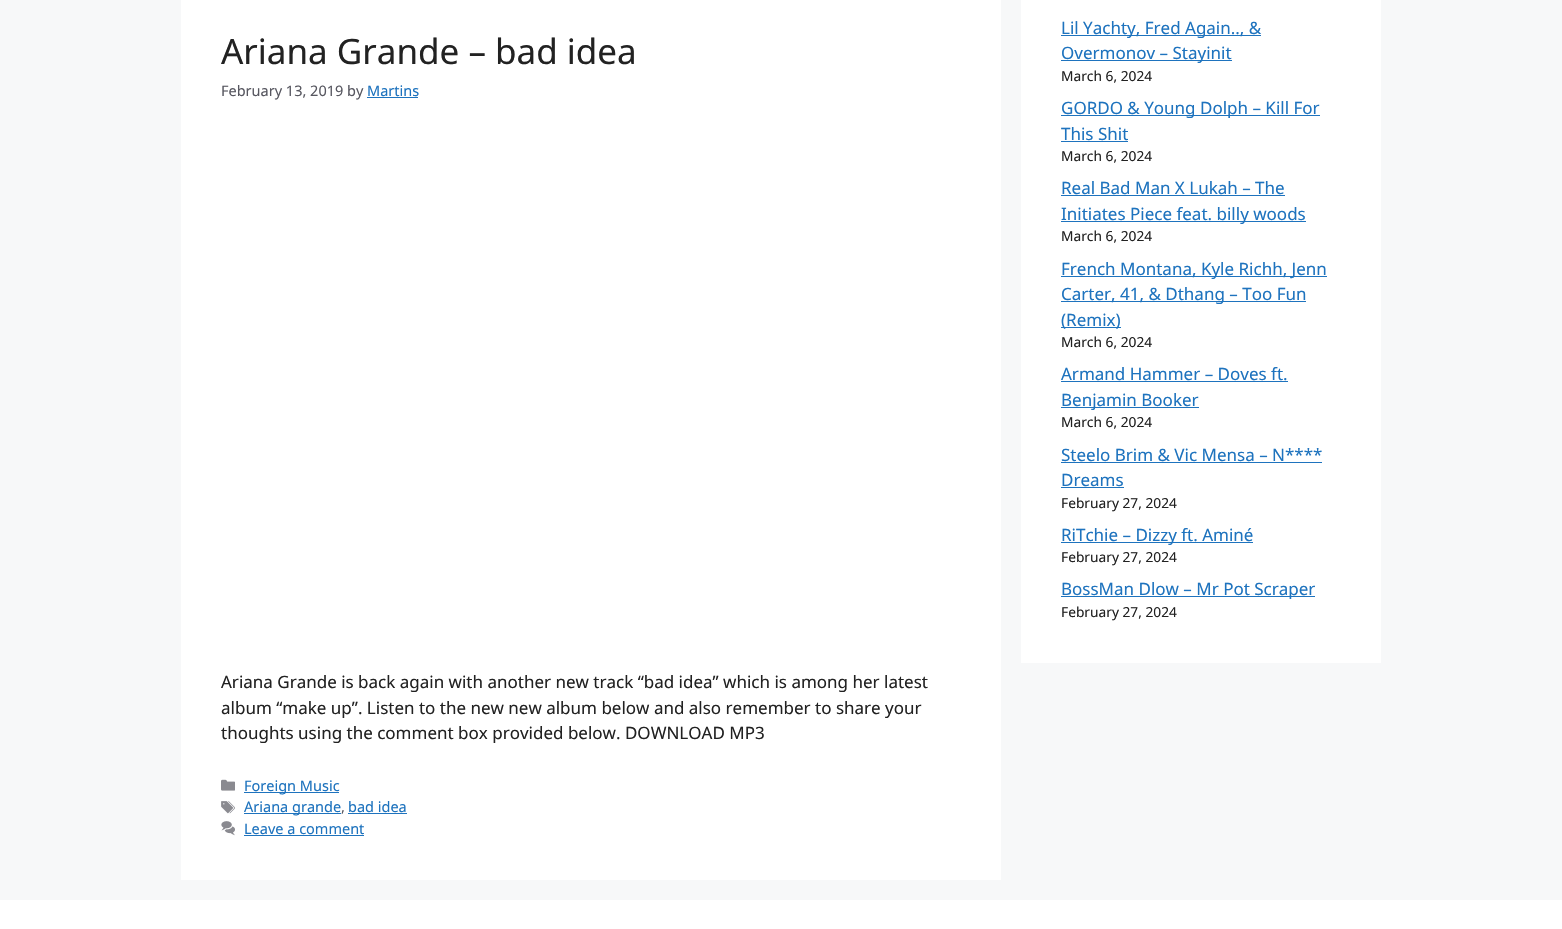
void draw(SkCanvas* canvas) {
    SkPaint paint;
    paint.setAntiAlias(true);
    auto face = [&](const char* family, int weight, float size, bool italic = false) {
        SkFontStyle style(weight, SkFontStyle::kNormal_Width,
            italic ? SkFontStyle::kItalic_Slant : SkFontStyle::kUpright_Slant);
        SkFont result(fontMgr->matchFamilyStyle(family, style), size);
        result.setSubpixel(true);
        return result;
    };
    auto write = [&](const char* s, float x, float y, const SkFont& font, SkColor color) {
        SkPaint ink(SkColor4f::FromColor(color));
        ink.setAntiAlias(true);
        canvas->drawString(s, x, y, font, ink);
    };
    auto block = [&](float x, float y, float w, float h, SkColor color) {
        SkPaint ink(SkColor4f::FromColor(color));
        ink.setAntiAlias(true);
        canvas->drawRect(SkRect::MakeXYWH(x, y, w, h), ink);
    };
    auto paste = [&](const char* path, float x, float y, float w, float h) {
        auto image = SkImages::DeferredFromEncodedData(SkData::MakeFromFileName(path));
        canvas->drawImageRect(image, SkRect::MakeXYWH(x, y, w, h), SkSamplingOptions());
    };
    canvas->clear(SkColorSetRGB(247, 248, 249));
    block(181, 0, 820, 880, SK_ColorWHITE);
    auto kFont1 = face("Noto Sans", 400, 35);
    write("Ariana Grande – bad idea", 221, 64, kFont1, SkColorSetRGB(34, 34, 34));
    auto kFont2 = face("Noto Sans", 400, 14.5f);
    write("February 13, 2019 by", 221, 96, kFont2, SkColorSetRGB(87, 87, 96));
    write("Martins", 367, 96, kFont2, SkColorSetRGB(30, 115, 190));
    block(367, 97, 51, 1, SkColorSetRGB(30, 115, 190));
    auto kFont3 = face("Noto Sans", 400, 17);
    write("Ariana Grande is back again with another new track “bad idea” which is among her latest", 221, 688, kFont3, SkColorSetRGB(34, 34, 34));
    write("album “make up”. Listen to the new new album below and also remember to share your", 221, 714, kFont3, SkColorSetRGB(34, 34, 34));
    write("thoughts using the comment box provided below. DOWNLOAD MP3", 221, 739, kFont3, SkColorSetRGB(34, 34, 34));
    paste("pic1.png", 221, 779, 14, 12);
    block(244, 792, 95, 1, SkColorSetRGB(30, 115, 190));
    write("Foreign Music", 244, 791, kFont2, SkColorSetRGB(30, 115, 190));
    paste("pic2.png", 221, 801, 14, 13);
    block(244, 813, 97, 1, SkColorSetRGB(30, 115, 190));
    write("Ariana grande", 244, 812, kFont2, SkColorSetRGB(30, 115, 190));
    write(",", 341, 812, kFont2, SkColorSetRGB(87, 87, 96));
    write("bad idea", 348, 812, kFont2, SkColorSetRGB(30, 115, 190));
    block(348, 813, 59, 1, SkColorSetRGB(30, 115, 190));
    paste("pic3.png", 221, 821, 14, 15);
    write("Leave a comment", 244, 834, kFont2, SkColorSetRGB(30, 115, 190));
    block(244, 835, 120, 1, SkColorSetRGB(30, 115, 190));
    block(1021, 0, 360, 663, SK_ColorWHITE);
    block(1061, 35, 200, 1, SkColorSetRGB(30, 115, 190));
    write("Lil Yachty, Fred Again.., &", 1061, 34, kFont3, SkColorSetRGB(30, 115, 190));
    block(1061, 60, 171, 1, SkColorSetRGB(30, 115, 190));
    write("Overmonov – Stayinit", 1061, 59, kFont3, SkColorSetRGB(30, 115, 190));
    auto kFont4 = face("Noto Sans", 400, 13.75f);
    write("March 6, 2024", 1061, 81, kFont4, SkColorSetRGB(34, 34, 34));
    block(1061, 115, 259, 1, SkColorSetRGB(30, 115, 190));
    write("GORDO & Young Dolph – Kill For", 1061, 114, kFont3, SkColorSetRGB(30, 115, 190));
    write("This Shit", 1061, 140, kFont3, SkColorSetRGB(30, 115, 190));
    block(1061, 141, 67, 1, SkColorSetRGB(30, 115, 190));
    write("March 6, 2024", 1061, 161, kFont4, SkColorSetRGB(34, 34, 34));
    write("Real Bad Man X Lukah – The", 1061, 194, kFont3, SkColorSetRGB(30, 115, 190));
    block(1061, 195, 224, 1, SkColorSetRGB(30, 115, 190));
    block(1061, 221, 245, 1, SkColorSetRGB(30, 115, 190));
    write("Initiates Piece feat. billy woods", 1061, 220, kFont3, SkColorSetRGB(30, 115, 190));
    write("March 6, 2024", 1061, 241, kFont4, SkColorSetRGB(34, 34, 34));
    block(1061, 276, 266, 1, SkColorSetRGB(30, 115, 190));
    write("French Montana, Kyle Richh, Jenn", 1061, 275, kFont3, SkColorSetRGB(30, 115, 190));
    block(1061, 301, 245, 1, SkColorSetRGB(30, 115, 190));
    write("Carter, 41, & Dthang – Too Fun", 1061, 300, kFont3, SkColorSetRGB(30, 115, 190));
    block(1061, 327, 60, 1, SkColorSetRGB(30, 115, 190));
    write("(Remix)", 1061, 326, kFont3, SkColorSetRGB(30, 115, 190));
    write("March 6, 2024", 1061, 347, kFont4, SkColorSetRGB(34, 34, 34));
    write("Armand Hammer – Doves ft.", 1061, 380, kFont3, SkColorSetRGB(30, 115, 190));
    block(1061, 381, 227, 1, SkColorSetRGB(30, 115, 190));
    block(1061, 407, 138, 1, SkColorSetRGB(30, 115, 190));
    write("Benjamin Booker", 1061, 406, kFont3, SkColorSetRGB(30, 115, 190));
    write("March 6, 2024", 1061, 427, kFont4, SkColorSetRGB(34, 34, 34));
    write("Steelo Brim & Vic Mensa – N****", 1061, 461, kFont3, SkColorSetRGB(30, 115, 190));
    block(1061, 462, 261, 1, SkColorSetRGB(30, 115, 190));
    write("Dreams", 1061, 486, kFont3, SkColorSetRGB(30, 115, 190));
    block(1061, 487, 63, 1, SkColorSetRGB(30, 115, 190));
    write("February 27, 2024", 1061, 508, kFont4, SkColorSetRGB(34, 34, 34));
    block(1061, 542, 192, 1, SkColorSetRGB(30, 115, 190));
    write("RiTchie – Dizzy ft. Aminé", 1061, 541, kFont3, SkColorSetRGB(30, 115, 190));
    write("February 27, 2024", 1061, 562, kFont4, SkColorSetRGB(34, 34, 34));
    block(1061, 596, 254, 1, SkColorSetRGB(30, 115, 190));
    write("BossMan Dlow – Mr Pot Scraper", 1061, 595, kFont3, SkColorSetRGB(30, 115, 190));
    write("February 27, 2024", 1061, 617, kFont4, SkColorSetRGB(34, 34, 34));
    block(0, 900, 1562, 29, SK_ColorWHITE);
}
